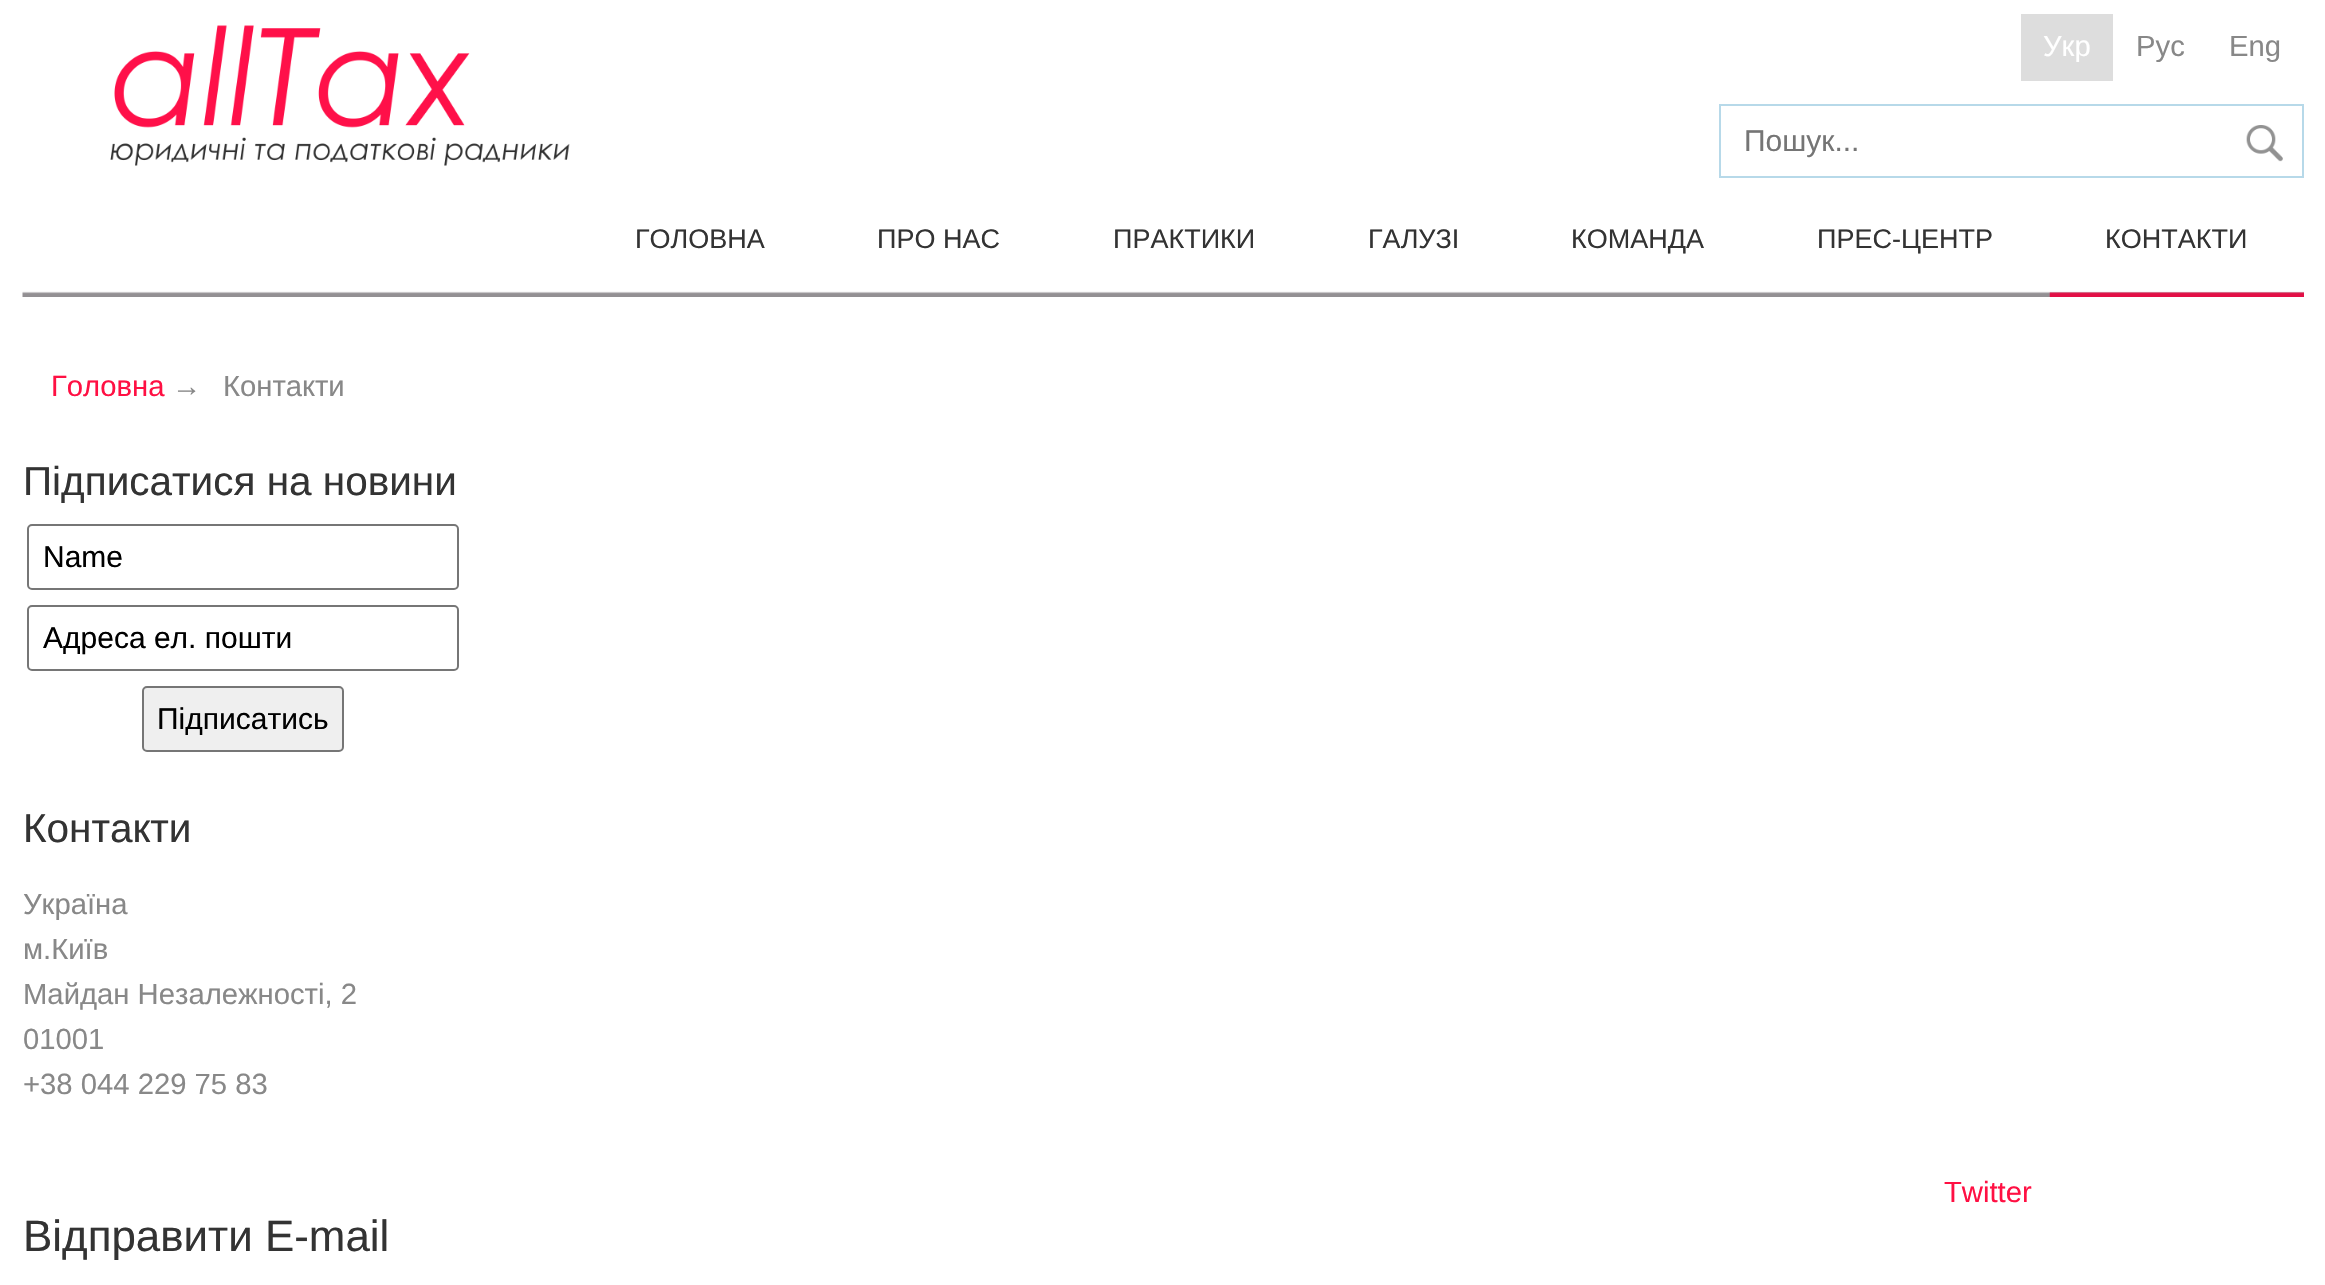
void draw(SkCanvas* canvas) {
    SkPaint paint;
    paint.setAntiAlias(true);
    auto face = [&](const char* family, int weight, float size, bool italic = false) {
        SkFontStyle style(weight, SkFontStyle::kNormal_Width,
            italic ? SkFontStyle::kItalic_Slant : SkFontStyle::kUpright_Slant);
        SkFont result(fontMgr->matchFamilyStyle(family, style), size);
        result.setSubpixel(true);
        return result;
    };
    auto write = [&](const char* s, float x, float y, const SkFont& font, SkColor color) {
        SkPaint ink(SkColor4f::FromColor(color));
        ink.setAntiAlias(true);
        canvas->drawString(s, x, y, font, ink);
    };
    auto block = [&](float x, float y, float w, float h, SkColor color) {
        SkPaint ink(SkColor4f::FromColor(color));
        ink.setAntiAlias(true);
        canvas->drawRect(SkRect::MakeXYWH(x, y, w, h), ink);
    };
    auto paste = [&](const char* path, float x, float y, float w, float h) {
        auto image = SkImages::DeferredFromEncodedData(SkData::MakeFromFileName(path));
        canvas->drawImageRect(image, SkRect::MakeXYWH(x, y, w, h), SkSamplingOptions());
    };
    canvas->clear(SK_ColorWHITE);
    paste("pic1.png", 110, 25, 460, 141);
    block(2021, 14, 92, 67, SkColorSetRGB(221, 221, 221));
    auto kFont1 = face("Liberation Sans", 400, 29.25f);
    write("Укр", 2043, 56, kFont1, SK_ColorWHITE);
    write("Рус", 2136, 56, kFont1, SkColorSetRGB(136, 136, 136));
    write("Eng", 2229, 56, kFont1, SkColorSetRGB(136, 136, 136));
    paint.setStyle(SkPaint::kStroke_Style);
    paint.setStrokeWidth(2);
    paint.setColor(SkColorSetRGB(183, 217, 233));
    canvas->drawRect(SkRect::MakeXYWH(1720, 105, 583, 72), paint);
    auto kFont2 = face("Liberation Sans", 400, 30);
    write("Пошук...", 1744, 151, kFont2, SkColorSetRGB(117, 117, 117));
    paste("pic2.png", 2246, 125, 37, 37);
    paste("pic3.png", 22, 291, 2282, 6);
    auto kFont3 = face("Liberation Sans", 400, 27);
    write("ГОЛОВНА", 635, 248, kFont3, SkColorSetRGB(51, 51, 51));
    write("ПРО НАС", 877, 248, kFont3, SkColorSetRGB(51, 51, 51));
    write("ПРАКТИКИ", 1113, 248, kFont3, SkColorSetRGB(51, 51, 51));
    write("ГАЛУЗІ", 1368, 248, kFont3, SkColorSetRGB(51, 51, 51));
    write("КОМАНДА", 1571, 248, kFont3, SkColorSetRGB(51, 51, 51));
    write("ПРЕС-ЦЕНТР", 1817, 248, kFont3, SkColorSetRGB(51, 51, 51));
    paste("pic4.png", 2049, 292, 255, 5);
    write("КОНТАКТИ", 2105, 248, kFont3, SkColorSetRGB(51, 51, 51));
    write("Головна", 51, 396, kFont1, SkColorSetRGB(255, 16, 67));
    write("→", 172, 396, kFont1, SkColorSetRGB(136, 136, 136));
    write("Контакти", 223, 396, kFont1, SkColorSetRGB(136, 136, 136));
    auto kFont4 = face("Liberation Sans", 400, 40.5f);
    write("Підписатися на новини", 23, 495, kFont4, SkColorSetRGB(51, 51, 51));
    paint.setColor(SkColorSetRGB(118, 118, 118));
    canvas->drawRoundRect(SkRect::MakeXYWH(28, 525, 430, 64), 4, 4, paint);
    write("Name", 43, 567, kFont2, SK_ColorBLACK);
    canvas->drawRoundRect(SkRect::MakeXYWH(28, 606, 430, 64), 4, 4, paint);
    write("Адреса ел. пошти", 43, 648, kFont2, SK_ColorBLACK);
    paint.setStyle(SkPaint::kFill_Style);
    paint.setColor(SkColorSetRGB(239, 239, 239));
    canvas->drawRoundRect(SkRect::MakeXYWH(143, 687, 200, 64), 4, 4, paint);
    paint.setStyle(SkPaint::kStroke_Style);
    paint.setColor(SkColorSetRGB(118, 118, 118));
    canvas->drawRoundRect(SkRect::MakeXYWH(143, 687, 200, 64), 4, 4, paint);
    write("Підписатись", 157, 729, kFont2, SK_ColorBLACK);
    write("Контакти", 23, 842, kFont4, SkColorSetRGB(51, 51, 51));
    write("Україна", 23, 914, kFont1, SkColorSetRGB(136, 136, 136));
    write("м.Київ", 23, 959, kFont1, SkColorSetRGB(136, 136, 136));
    write("Майдан Незалежності, 2", 23, 1004, kFont1, SkColorSetRGB(136, 136, 136));
    write("01001", 23, 1049, kFont1, SkColorSetRGB(136, 136, 136));
    write("+38 044 229 75 83", 23, 1094, kFont1, SkColorSetRGB(136, 136, 136));
    write("Twitter", 1944, 1202, kFont1, SkColorSetRGB(255, 16, 67));
    auto kFont5 = face("Liberation Sans", 400, 43.9f);
    write("Відправити E-mail", 23, 1251, kFont5, SkColorSetRGB(51, 51, 51));
}
